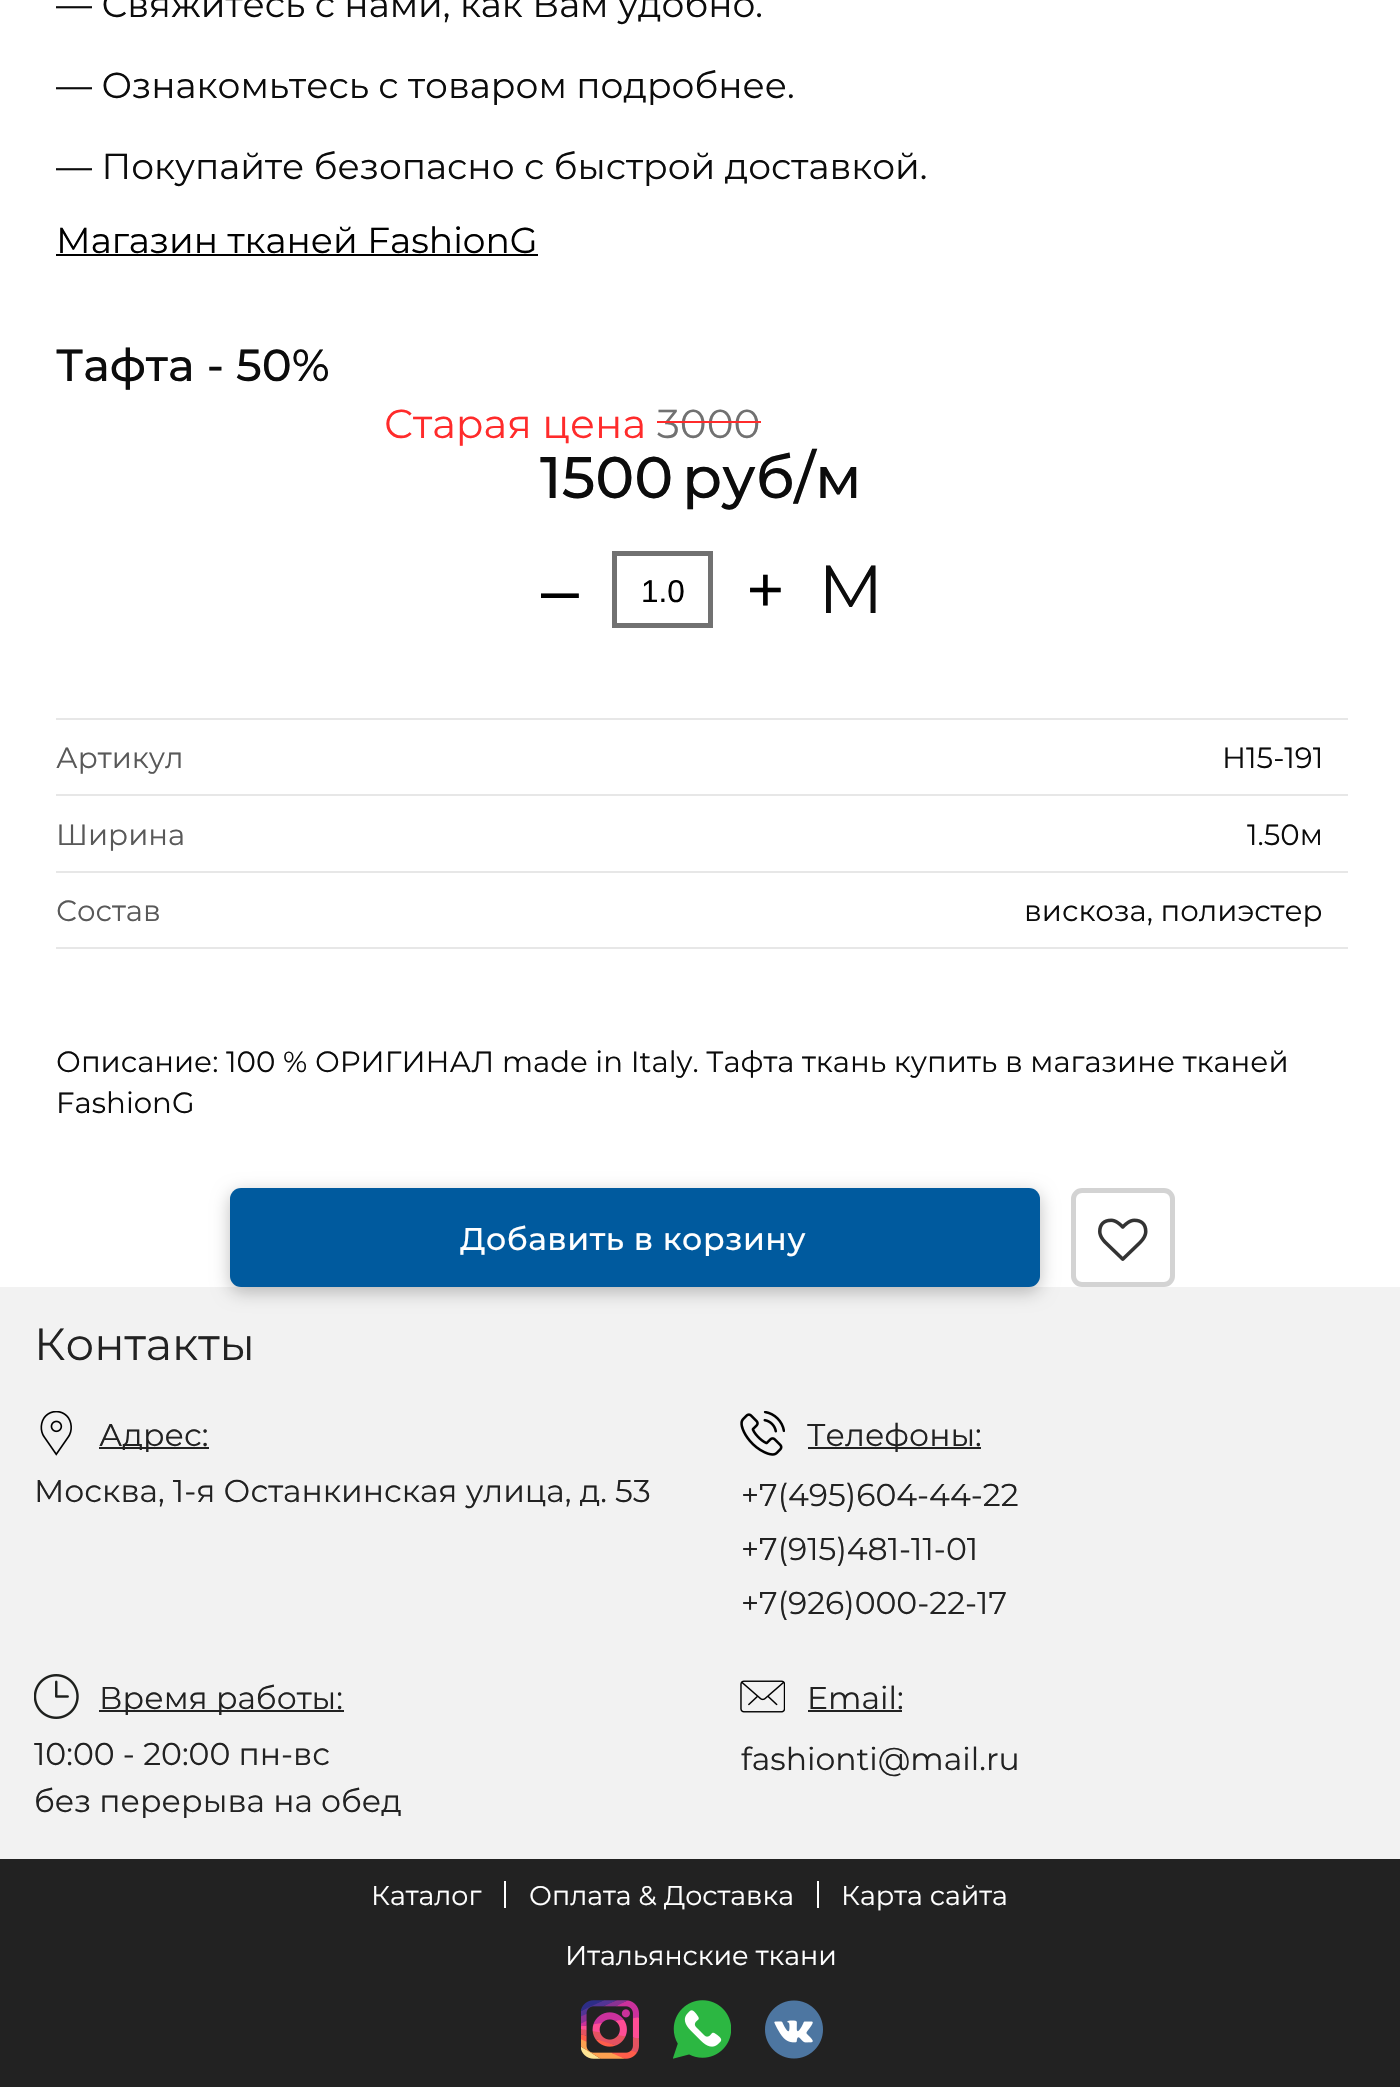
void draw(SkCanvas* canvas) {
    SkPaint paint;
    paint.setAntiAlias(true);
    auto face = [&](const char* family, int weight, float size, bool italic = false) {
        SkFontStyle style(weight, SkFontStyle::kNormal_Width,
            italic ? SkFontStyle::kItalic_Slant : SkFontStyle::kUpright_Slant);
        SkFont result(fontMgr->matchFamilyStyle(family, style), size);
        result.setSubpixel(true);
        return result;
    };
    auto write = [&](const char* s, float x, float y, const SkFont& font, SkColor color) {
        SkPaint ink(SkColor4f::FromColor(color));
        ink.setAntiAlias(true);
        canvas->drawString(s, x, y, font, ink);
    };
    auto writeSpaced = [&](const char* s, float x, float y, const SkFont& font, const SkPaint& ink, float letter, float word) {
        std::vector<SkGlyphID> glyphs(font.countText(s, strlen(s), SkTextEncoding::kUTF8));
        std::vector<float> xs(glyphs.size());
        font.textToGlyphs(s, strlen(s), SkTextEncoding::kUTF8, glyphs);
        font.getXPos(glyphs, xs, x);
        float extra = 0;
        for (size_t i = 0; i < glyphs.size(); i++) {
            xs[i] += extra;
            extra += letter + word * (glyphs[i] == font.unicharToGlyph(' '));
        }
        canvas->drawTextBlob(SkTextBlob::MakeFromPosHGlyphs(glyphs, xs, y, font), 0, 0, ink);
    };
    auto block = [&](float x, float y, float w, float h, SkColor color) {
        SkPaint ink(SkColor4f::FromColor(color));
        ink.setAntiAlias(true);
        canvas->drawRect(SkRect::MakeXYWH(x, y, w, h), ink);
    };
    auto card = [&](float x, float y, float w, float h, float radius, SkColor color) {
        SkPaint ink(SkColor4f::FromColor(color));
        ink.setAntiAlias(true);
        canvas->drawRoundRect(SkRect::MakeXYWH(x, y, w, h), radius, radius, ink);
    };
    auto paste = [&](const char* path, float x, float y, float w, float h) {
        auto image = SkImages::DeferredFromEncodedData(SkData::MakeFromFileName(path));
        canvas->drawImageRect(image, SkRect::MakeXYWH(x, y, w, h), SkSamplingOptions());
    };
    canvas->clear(SK_ColorWHITE);
    auto kFont1 = face("Montserrat", 400, 36);
    write("— Свяжитесь с нами, как Вам удобно.", 56, 17, kFont1, SkColorSetRGB(12, 12, 12));
    write("— Ознакомьтесь с товаром подробнее.", 56, 98, kFont1, SkColorSetRGB(12, 12, 12));
    write("— Покупайте безопасно с быстрой доставкой.", 56, 179, kFont1, SkColorSetRGB(12, 12, 12));
    write("Магазин тканей FashionG", 56, 253, kFont1, SK_ColorBLACK);
    block(56, 254, 482, 2, SK_ColorBLACK);
    auto kFont2 = face("Montserrat", 500, 45);
    write("Тафта - 50%", 56, 381, kFont2, SkColorSetRGB(12, 12, 12));
    auto kFont3 = face("Montserrat", 400, 40.5f);
    write("Старая цена", 384, 438, kFont3, SkColorSetRGB(255, 43, 43));
    write("3000", 657, 438, kFont3, SkColorSetRGB(113, 113, 113));
    block(657, 421, 104, 2, SkColorSetRGB(255, 43, 43));
    auto kFont4 = face("Montserrat", 500, 58.5f);
    write("1500", 540, 498, kFont4, SkColorSetRGB(12, 12, 12));
    write("руб/м", 682, 498, kFont4, SkColorSetRGB(12, 12, 12));
    auto kFont5 = face("Liberation Sans", 400, 68);
    write("‒", 541, 613, kFont5, SK_ColorBLACK);
    paint.setStyle(SkPaint::kStroke_Style);
    paint.setStrokeWidth(5);
    paint.setColor(SkColorSetRGB(113, 113, 113));
    canvas->drawRect(SkRect::MakeXYWH(614.5f, 553.5f, 96, 72), paint);
    auto kFont6 = face("Liberation Sans", 400, 31.5f);
    write("1.0", 641, 602, kFont6, SK_ColorBLACK);
    auto kFont7 = face("Liberation Sans", 400, 63);
    write("+", 747, 611, kFont7, SK_ColorBLACK);
    auto kFont8 = face("Montserrat", 400, 68);
    write("М", 818, 613, kFont8, SkColorSetRGB(12, 12, 12));
    block(56, 718, 1292, 2, SkColorSetRGB(231, 231, 231));
    block(56, 794, 1292, 2, SkColorSetRGB(231, 231, 231));
    auto kFont9 = face("Montserrat", 400, 29.25f);
    write("Артикул", 56, 768, kFont9, SkColorSetRGB(89, 89, 89));
    write("Н15-191", 1222, 768, kFont9, SkColorSetRGB(12, 12, 12));
    block(56, 871, 1292, 2, SkColorSetRGB(231, 231, 231));
    write("Ширина", 56, 845, kFont9, SkColorSetRGB(89, 89, 89));
    write("1.50м", 1247, 845, kFont9, SkColorSetRGB(12, 12, 12));
    block(56, 947, 1292, 2, SkColorSetRGB(231, 231, 231));
    write("Состав", 56, 921, kFont9, SkColorSetRGB(89, 89, 89));
    write("вискоза, полиэстер", 1024, 921, kFont9, SkColorSetRGB(12, 12, 12));
    write("Описание: 100 % ОРИГИНАЛ made in Italy. Тафта ткань купить в магазине тканей", 56, 1072, kFont9, SkColorSetRGB(12, 12, 12));
    write("FashionG", 56, 1113, kFont9, SkColorSetRGB(12, 12, 12));
    block(0, 1287, 1400, 572, SkColorSetRGB(242, 242, 242));
    paint.setStyle(SkPaint::kFill_Style);
    paint.setColor(SkColorSetARGB(64, 0, 0, 0));
    paint.setMaskFilter(SkMaskFilter::MakeBlur(kNormal_SkBlurStyle, 9));
    canvas->drawRoundRect(SkRect::MakeXYWH(230, 1193, 810, 99), 11, 11, paint);
    paint.setMaskFilter(nullptr);
    card(230, 1188, 810, 99, 11, SkColorSetRGB(0, 90, 158));
    auto kFont10 = face("Montserrat", 500, 31.5f);
    paint.setColor(SK_ColorWHITE);
    writeSpaced("Добавить в корзину", 460, 1250, kFont10, paint, 0.6f, 0);
    paint.setStyle(SkPaint::kStroke_Style);
    paint.setColor(SkColorSetRGB(211, 211, 211));
    canvas->drawRoundRect(SkRect::MakeXYWH(1073.5f, 1190.5f, 99, 94), 8.5f, 8.5f, paint);
    paste("pic1.png", 1098, 1218, 50, 43);
    auto kFont11 = face("Montserrat", 400, 45);
    write("Контакты", 34, 1360, kFont11, SkColorSetRGB(34, 34, 34));
    paste("pic2.png", 40, 1411, 32, 45);
    block(99, 1447, 110, 2, SkColorSetRGB(34, 34, 34));
    auto kFont12 = face("Montserrat", 400, 31.5f);
    write("Адрес:", 99, 1446, kFont12, SkColorSetRGB(34, 34, 34));
    write("Москва, 1-я Останкинская улица, д. 53", 34, 1502, kFont12, SkColorSetRGB(34, 34, 34));
    paste("pic3.png", 740, 1411, 45, 45);
    block(808, 1447, 173, 2, SkColorSetRGB(34, 34, 34));
    write("Телефоны:", 807, 1446, kFont12, SkColorSetRGB(34, 34, 34));
    write("+7(495)604-44-22", 741, 1506, kFont12, SkColorSetRGB(34, 34, 34));
    write("+7(915)481-11-01", 741, 1560, kFont12, SkColorSetRGB(34, 34, 34));
    write("+7(926)000-22-17", 741, 1614, kFont12, SkColorSetRGB(34, 34, 34));
    paste("pic4.png", 34, 1674, 45, 45);
    block(99, 1710, 245, 2, SkColorSetRGB(34, 34, 34));
    write("Время работы:", 99, 1709, kFont12, SkColorSetRGB(34, 34, 34));
    write("10:00 - 20:00 пн-вс", 34, 1765, kFont12, SkColorSetRGB(34, 34, 34));
    write("без перерыва на обед", 34, 1812, kFont12, SkColorSetRGB(34, 34, 34));
    paste("pic5.png", 740, 1680, 45, 33);
    write("Email:", 807, 1709, kFont12, SkColorSetRGB(34, 34, 34));
    block(808, 1710, 94, 2, SkColorSetRGB(34, 34, 34));
    write("fashionti@mail.ru", 741, 1770, kFont12, SkColorSetRGB(34, 34, 34));
    block(0, 1859, 1400, 228, SkColorSetRGB(34, 34, 34));
    block(504, 1881, 2, 27, SK_ColorWHITE);
    auto kFont13 = face("Montserrat", 400, 27);
    write("Каталог", 371, 1905, kFont13, SK_ColorWHITE);
    block(817, 1881, 2, 27, SK_ColorWHITE);
    write("Оплата & Доставка", 529, 1905, kFont13, SK_ColorWHITE);
    write("Карта сайта", 841, 1905, kFont13, SK_ColorWHITE);
    write("Итальянские ткани", 565, 1965, kFont13, SK_ColorWHITE);
    paste("pic6.png", 581, 2000, 58, 59);
    paste("pic7.png", 673, 2000, 58, 59);
    paste("pic8.png", 765, 2000, 58, 59);
}
